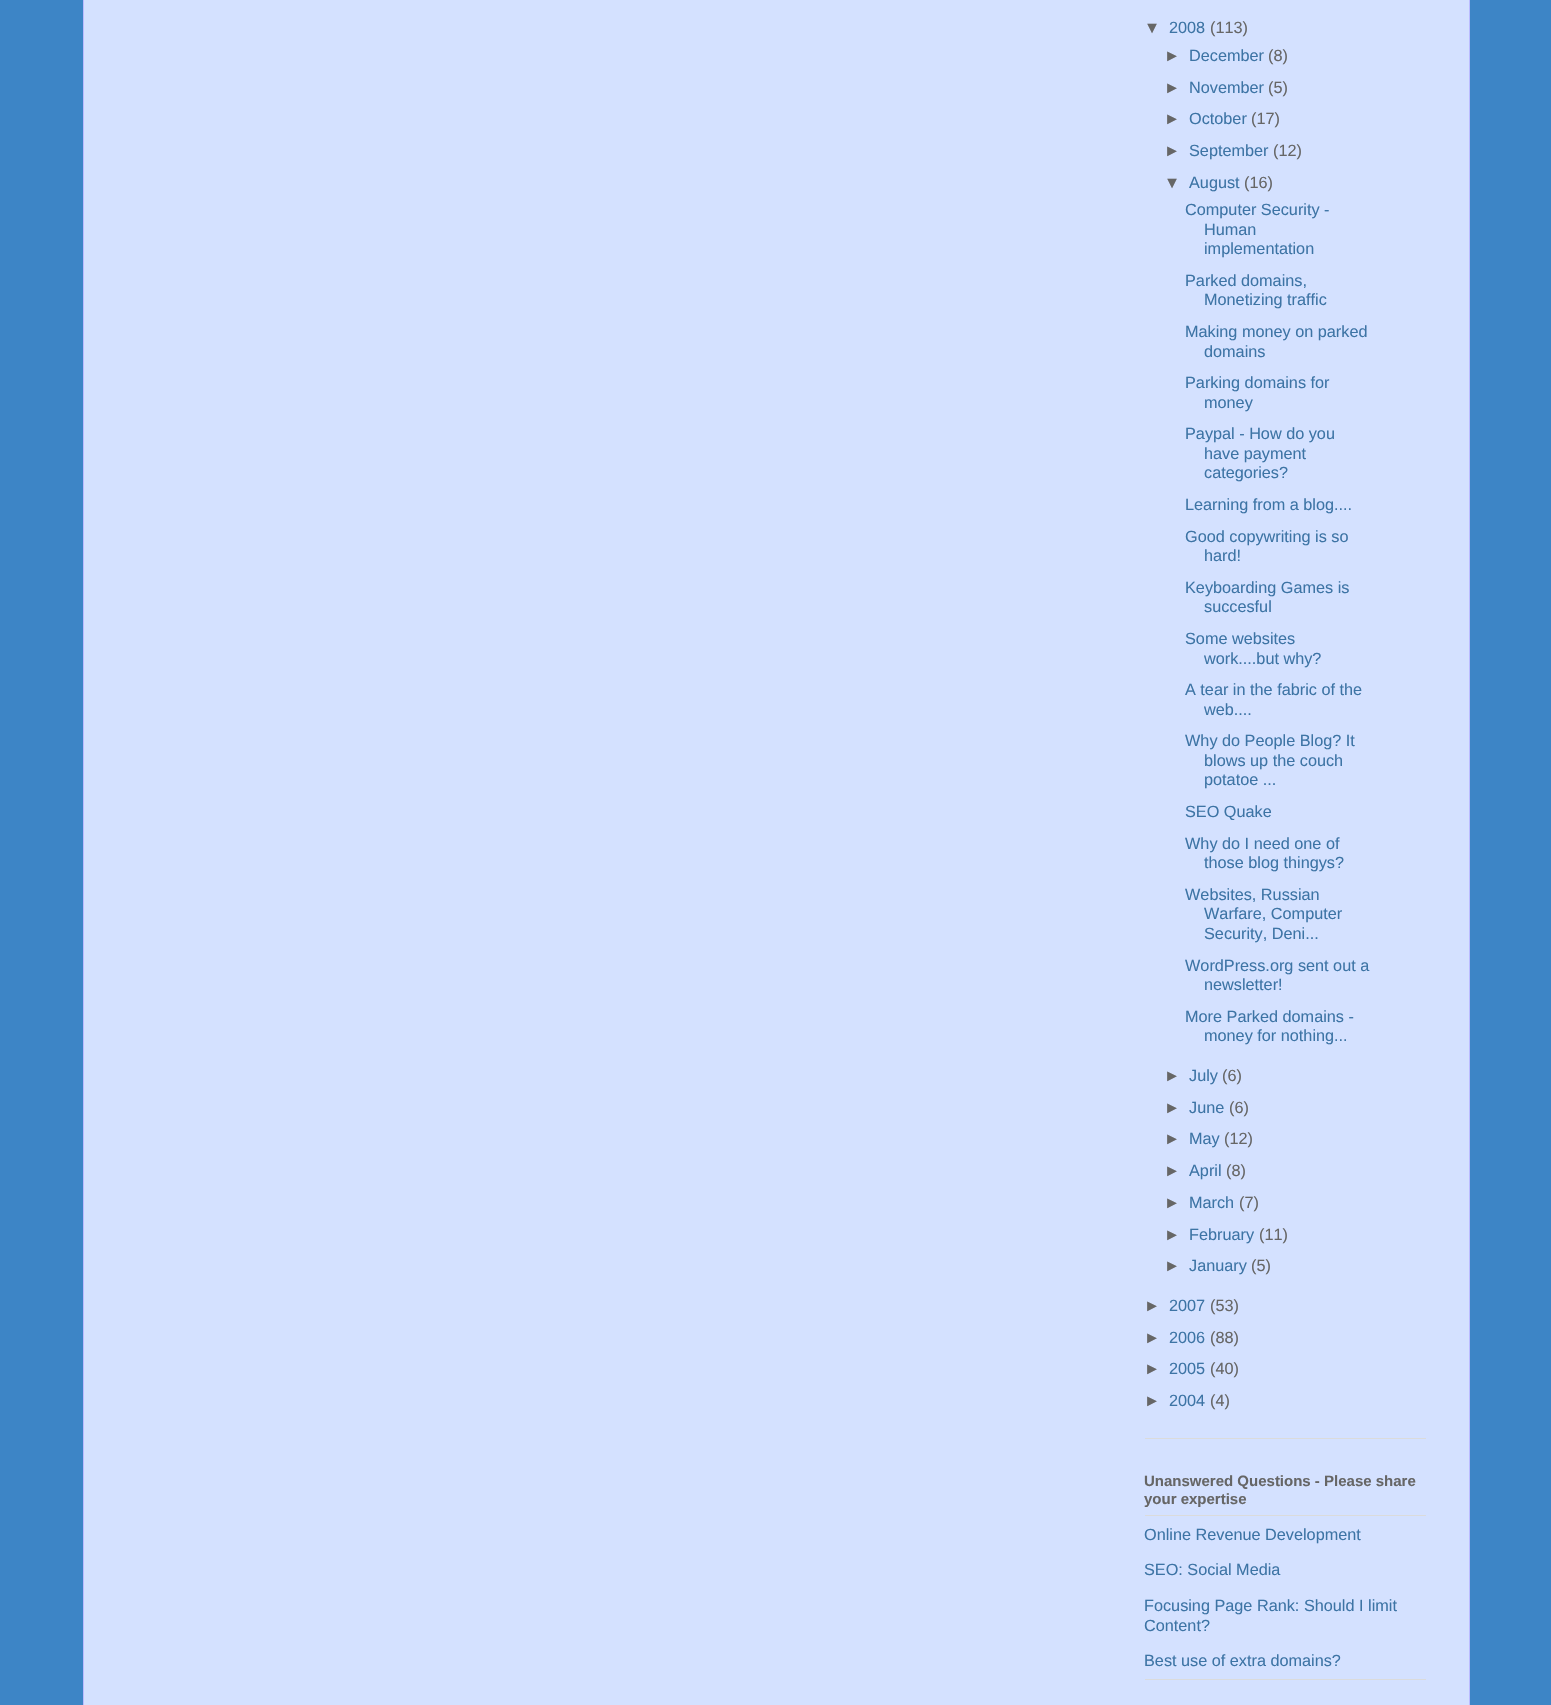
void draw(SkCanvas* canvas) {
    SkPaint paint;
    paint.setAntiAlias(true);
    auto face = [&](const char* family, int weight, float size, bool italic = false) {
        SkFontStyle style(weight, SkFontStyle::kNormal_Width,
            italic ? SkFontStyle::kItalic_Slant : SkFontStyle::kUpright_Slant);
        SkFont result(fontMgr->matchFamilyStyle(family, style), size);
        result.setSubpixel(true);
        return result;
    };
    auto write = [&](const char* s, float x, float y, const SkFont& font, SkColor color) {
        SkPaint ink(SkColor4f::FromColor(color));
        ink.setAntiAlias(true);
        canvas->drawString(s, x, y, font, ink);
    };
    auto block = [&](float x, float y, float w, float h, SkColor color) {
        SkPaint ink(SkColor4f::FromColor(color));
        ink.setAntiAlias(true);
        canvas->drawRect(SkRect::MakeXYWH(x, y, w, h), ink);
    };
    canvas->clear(SkColorSetRGB(61, 133, 198));
    block(84, 0, 1385, 1705, SkColorSetRGB(212, 225, 255));
    block(1469, 0, 1, 1705, SkColorSetRGB(187, 187, 255));
    block(83, 0, 1, 1705, SkColorSetRGB(187, 187, 255));
    block(1145, 1438, 281, 1, SkColorSetRGB(219, 219, 219));
    auto kFont1 = face("Liberation Sans", 400, 16.25f);
    write("▼", 1144, 33, kFont1, SkColorSetRGB(102, 102, 102));
    write("2008", 1169, 33, kFont1, SkColorSetRGB(61, 116, 165));
    write("(113)", 1210, 33, kFont1, SkColorSetRGB(102, 102, 102));
    write("►", 1164, 61, kFont1, SkColorSetRGB(102, 102, 102));
    write("December", 1189, 61, kFont1, SkColorSetRGB(61, 116, 165));
    write("(8)", 1268, 61, kFont1, SkColorSetRGB(102, 102, 102));
    write("►", 1164, 93, kFont1, SkColorSetRGB(102, 102, 102));
    write("November", 1189, 93, kFont1, SkColorSetRGB(61, 116, 165));
    write("(5)", 1268, 93, kFont1, SkColorSetRGB(102, 102, 102));
    write("►", 1164, 124, kFont1, SkColorSetRGB(102, 102, 102));
    write("October", 1189, 124, kFont1, SkColorSetRGB(61, 116, 165));
    write("(17)", 1251, 124, kFont1, SkColorSetRGB(102, 102, 102));
    write("►", 1164, 156, kFont1, SkColorSetRGB(102, 102, 102));
    write("September", 1189, 156, kFont1, SkColorSetRGB(61, 116, 165));
    write("(12)", 1273, 156, kFont1, SkColorSetRGB(102, 102, 102));
    write("▼", 1164, 188, kFont1, SkColorSetRGB(102, 102, 102));
    write("August", 1189, 188, kFont1, SkColorSetRGB(61, 116, 165));
    write("(16)", 1244, 188, kFont1, SkColorSetRGB(102, 102, 102));
    write("Computer Security -", 1185, 215, kFont1, SkColorSetRGB(61, 116, 165));
    write("Human", 1204, 235, kFont1, SkColorSetRGB(61, 116, 165));
    write("implementation", 1204, 254, kFont1, SkColorSetRGB(61, 116, 165));
    write("Parked domains,", 1185, 286, kFont1, SkColorSetRGB(61, 116, 165));
    write("Monetizing traffic", 1204, 305, kFont1, SkColorSetRGB(61, 116, 165));
    write("Making money on parked", 1185, 337, kFont1, SkColorSetRGB(61, 116, 165));
    write("domains", 1204, 357, kFont1, SkColorSetRGB(61, 116, 165));
    write("Parking domains for", 1185, 388, kFont1, SkColorSetRGB(61, 116, 165));
    write("money", 1204, 408, kFont1, SkColorSetRGB(61, 116, 165));
    write("Paypal - How do you", 1185, 439, kFont1, SkColorSetRGB(61, 116, 165));
    write("have payment", 1204, 459, kFont1, SkColorSetRGB(61, 116, 165));
    write("categories?", 1204, 478, kFont1, SkColorSetRGB(61, 116, 165));
    write("Learning from a blog....", 1185, 510, kFont1, SkColorSetRGB(61, 116, 165));
    write("Good copywriting is so", 1185, 542, kFont1, SkColorSetRGB(61, 116, 165));
    write("hard!", 1204, 561, kFont1, SkColorSetRGB(61, 116, 165));
    write("Keyboarding Games is", 1185, 593, kFont1, SkColorSetRGB(61, 116, 165));
    write("succesful", 1204, 612, kFont1, SkColorSetRGB(61, 116, 165));
    write("Some websites", 1185, 644, kFont1, SkColorSetRGB(61, 116, 165));
    write("work....but why?", 1204, 664, kFont1, SkColorSetRGB(61, 116, 165));
    write("A tear in the fabric of the", 1185, 695, kFont1, SkColorSetRGB(61, 116, 165));
    write("web....", 1204, 715, kFont1, SkColorSetRGB(61, 116, 165));
    write("Why do People Blog? It", 1185, 746, kFont1, SkColorSetRGB(61, 116, 165));
    write("blows up the couch", 1204, 766, kFont1, SkColorSetRGB(61, 116, 165));
    write("potatoe ...", 1204, 785, kFont1, SkColorSetRGB(61, 116, 165));
    write("SEO Quake", 1185, 817, kFont1, SkColorSetRGB(61, 116, 165));
    write("Why do I need one of", 1185, 849, kFont1, SkColorSetRGB(61, 116, 165));
    write("those blog thingys?", 1204, 868, kFont1, SkColorSetRGB(61, 116, 165));
    write("Websites, Russian", 1185, 900, kFont1, SkColorSetRGB(61, 116, 165));
    write("Warfare, Computer", 1204, 919, kFont1, SkColorSetRGB(61, 116, 165));
    write("Security, Deni...", 1204, 939, kFont1, SkColorSetRGB(61, 116, 165));
    write("WordPress.org sent out a", 1185, 971, kFont1, SkColorSetRGB(61, 116, 165));
    write("newsletter!", 1204, 990, kFont1, SkColorSetRGB(61, 116, 165));
    write("More Parked domains -", 1185, 1022, kFont1, SkColorSetRGB(61, 116, 165));
    write("money for nothing...", 1204, 1041, kFont1, SkColorSetRGB(61, 116, 165));
    write("►", 1164, 1081, kFont1, SkColorSetRGB(102, 102, 102));
    write("July", 1189, 1081, kFont1, SkColorSetRGB(61, 116, 165));
    write("(6)", 1222, 1081, kFont1, SkColorSetRGB(102, 102, 102));
    write("►", 1164, 1113, kFont1, SkColorSetRGB(102, 102, 102));
    write("June", 1189, 1113, kFont1, SkColorSetRGB(61, 116, 165));
    write("(6)", 1229, 1113, kFont1, SkColorSetRGB(102, 102, 102));
    write("►", 1164, 1144, kFont1, SkColorSetRGB(102, 102, 102));
    write("May", 1189, 1144, kFont1, SkColorSetRGB(61, 116, 165));
    write("(12)", 1224, 1144, kFont1, SkColorSetRGB(102, 102, 102));
    write("►", 1164, 1176, kFont1, SkColorSetRGB(102, 102, 102));
    write("April", 1189, 1176, kFont1, SkColorSetRGB(61, 116, 165));
    write("(8)", 1226, 1176, kFont1, SkColorSetRGB(102, 102, 102));
    write("►", 1164, 1208, kFont1, SkColorSetRGB(102, 102, 102));
    write("March", 1189, 1208, kFont1, SkColorSetRGB(61, 116, 165));
    write("(7)", 1239, 1208, kFont1, SkColorSetRGB(102, 102, 102));
    write("►", 1164, 1240, kFont1, SkColorSetRGB(102, 102, 102));
    write("February", 1189, 1240, kFont1, SkColorSetRGB(61, 116, 165));
    write("(11)", 1259, 1240, kFont1, SkColorSetRGB(102, 102, 102));
    write("►", 1164, 1271, kFont1, SkColorSetRGB(102, 102, 102));
    write("January", 1189, 1271, kFont1, SkColorSetRGB(61, 116, 165));
    write("(5)", 1251, 1271, kFont1, SkColorSetRGB(102, 102, 102));
    write("►", 1144, 1311, kFont1, SkColorSetRGB(102, 102, 102));
    write("2007", 1169, 1311, kFont1, SkColorSetRGB(61, 116, 165));
    write("(53)", 1210, 1311, kFont1, SkColorSetRGB(102, 102, 102));
    write("►", 1144, 1343, kFont1, SkColorSetRGB(102, 102, 102));
    write("2006", 1169, 1343, kFont1, SkColorSetRGB(61, 116, 165));
    write("(88)", 1210, 1343, kFont1, SkColorSetRGB(102, 102, 102));
    write("►", 1144, 1374, kFont1, SkColorSetRGB(102, 102, 102));
    write("2005", 1169, 1374, kFont1, SkColorSetRGB(61, 116, 165));
    write("(40)", 1210, 1374, kFont1, SkColorSetRGB(102, 102, 102));
    write("►", 1144, 1406, kFont1, SkColorSetRGB(102, 102, 102));
    write("2004", 1169, 1406, kFont1, SkColorSetRGB(61, 116, 165));
    write("(4)", 1210, 1406, kFont1, SkColorSetRGB(102, 102, 102));
    block(1145, 1679, 281, 1, SkColorSetRGB(219, 219, 219));
    block(1145, 1515, 281, 1, SkColorSetRGB(219, 219, 219));
    auto kFont2 = face("Liberation Sans", 700, 15);
    write("Unanswered Questions - Please share", 1144, 1486, kFont2, SkColorSetRGB(102, 102, 102));
    write("your expertise", 1144, 1504, kFont2, SkColorSetRGB(102, 102, 102));
    write("Online Revenue Development", 1144, 1540, kFont1, SkColorSetRGB(61, 116, 165));
    write("SEO: Social Media", 1144, 1575, kFont1, SkColorSetRGB(61, 116, 165));
    write("Focusing Page Rank: Should I limit", 1144, 1611, kFont1, SkColorSetRGB(61, 116, 165));
    write("Content?", 1144, 1631, kFont1, SkColorSetRGB(61, 116, 165));
    write("Best use of extra domains?", 1144, 1666, kFont1, SkColorSetRGB(61, 116, 165));
}
